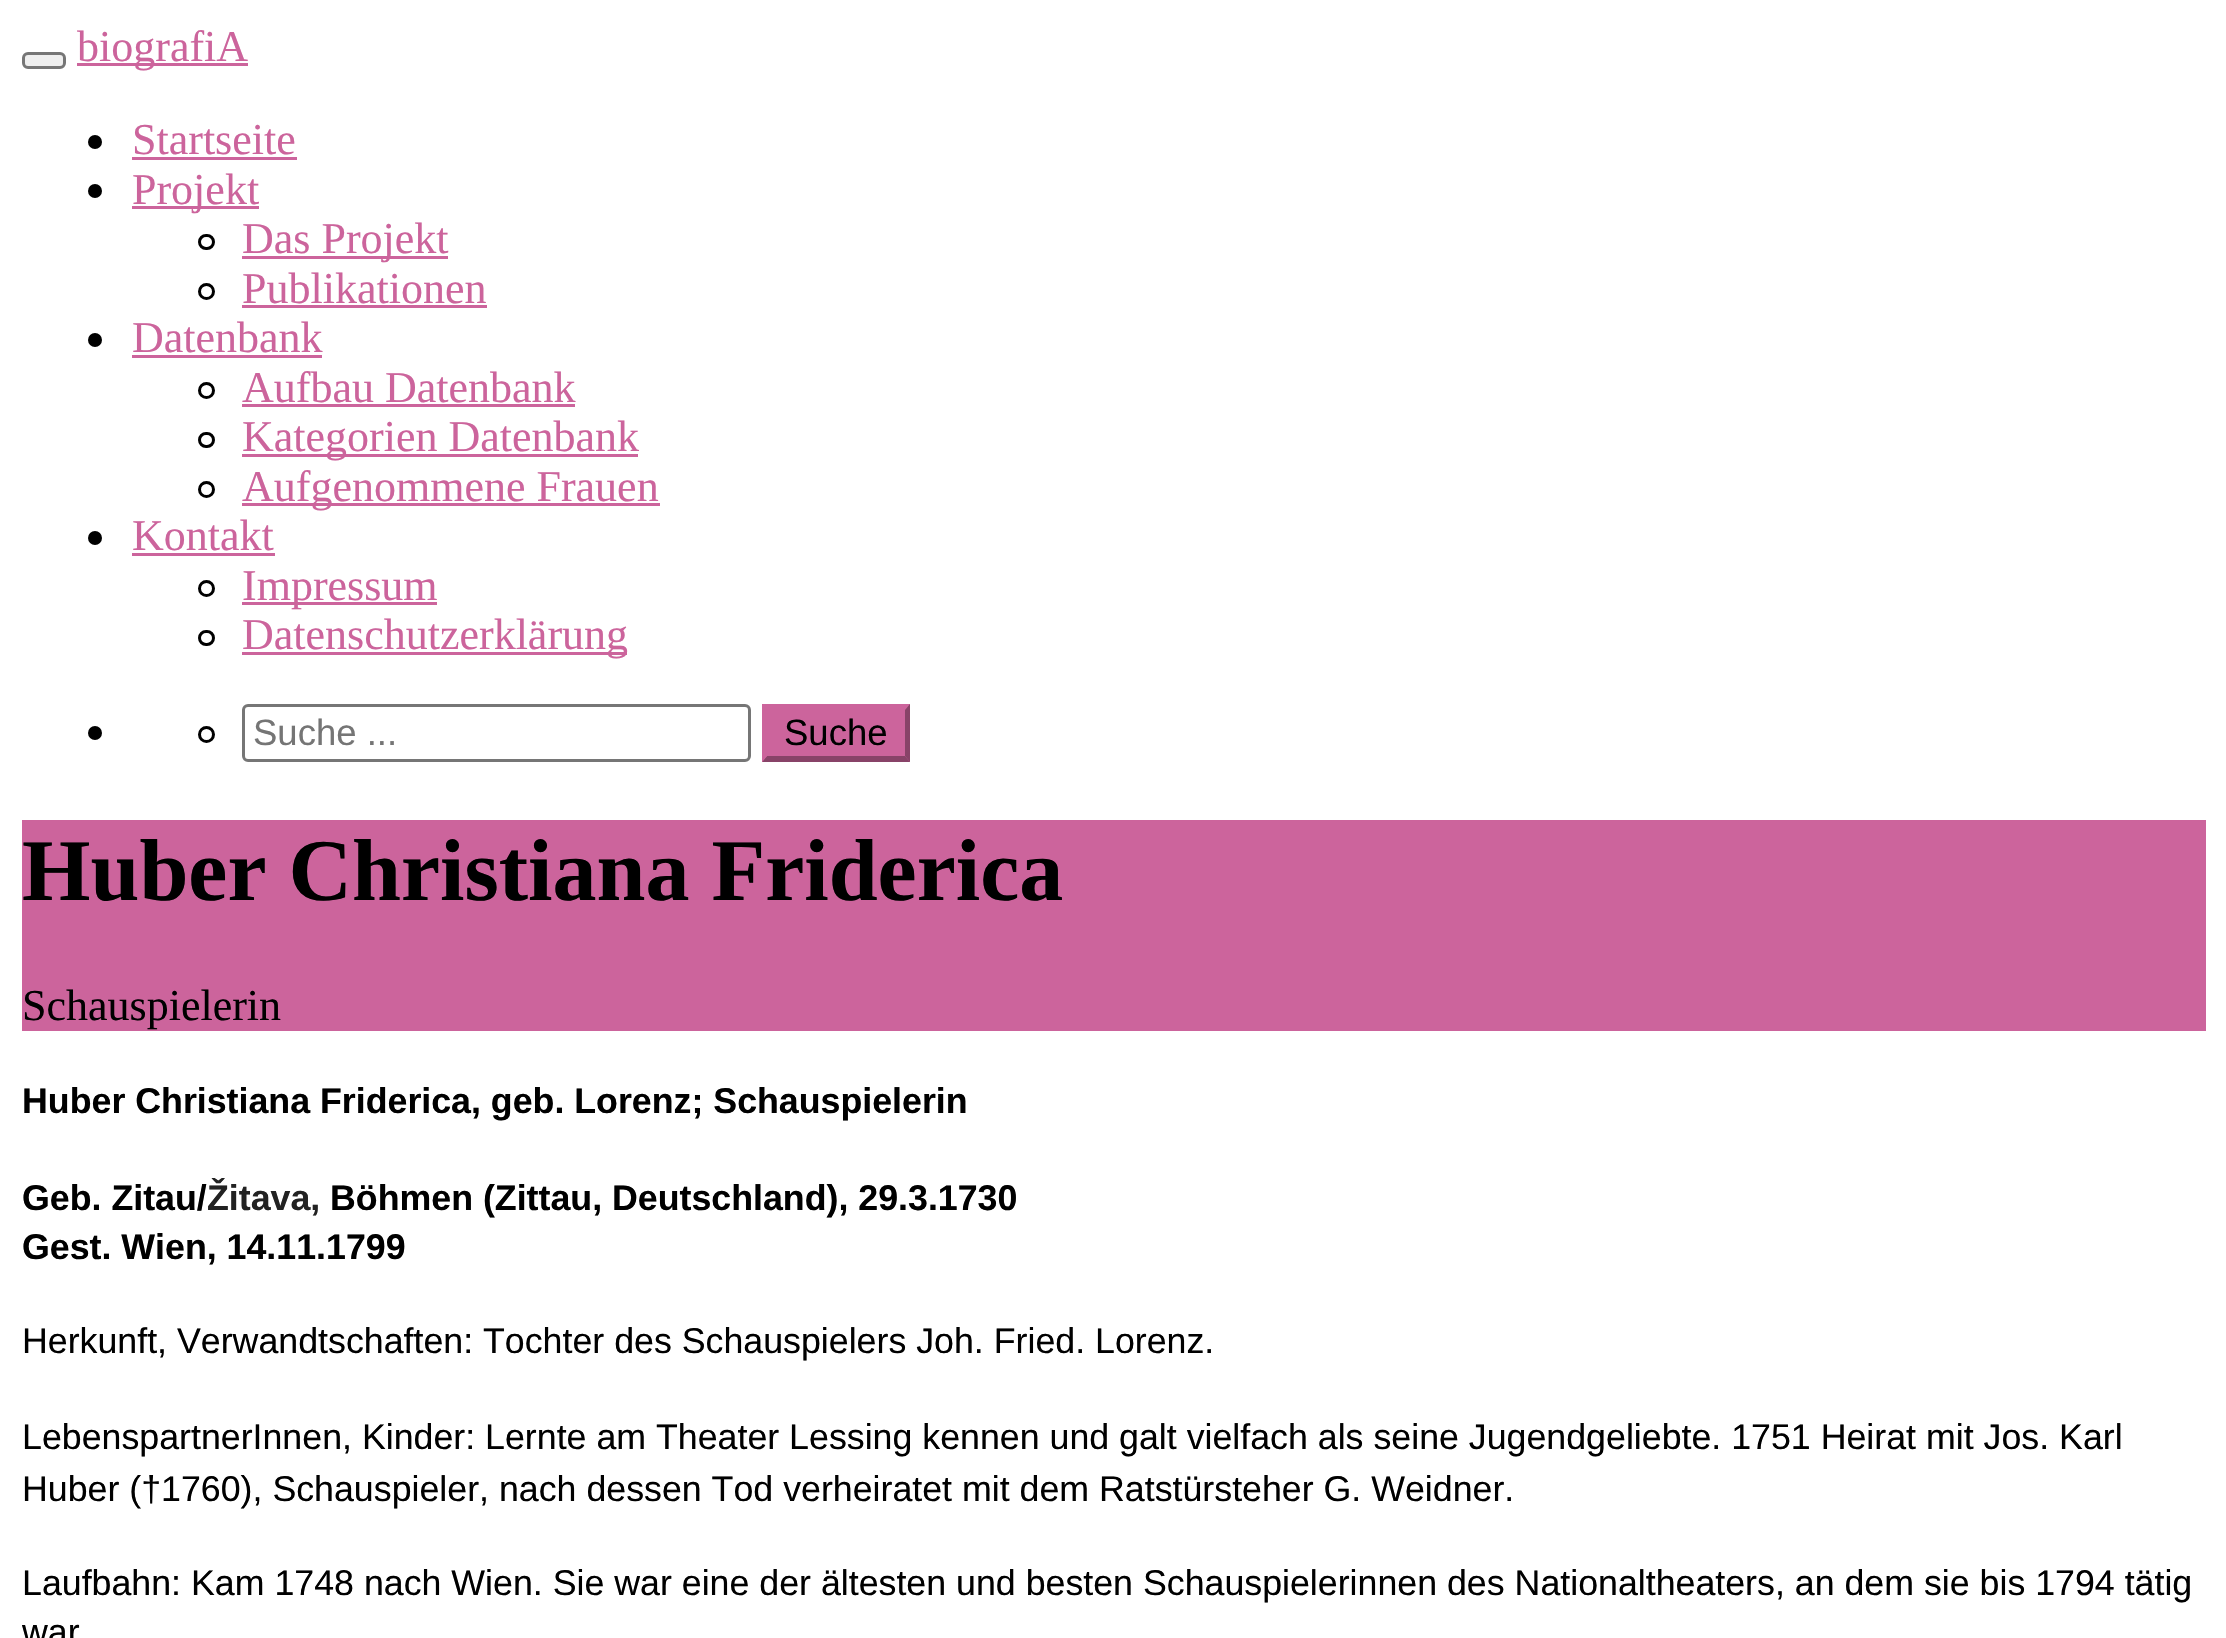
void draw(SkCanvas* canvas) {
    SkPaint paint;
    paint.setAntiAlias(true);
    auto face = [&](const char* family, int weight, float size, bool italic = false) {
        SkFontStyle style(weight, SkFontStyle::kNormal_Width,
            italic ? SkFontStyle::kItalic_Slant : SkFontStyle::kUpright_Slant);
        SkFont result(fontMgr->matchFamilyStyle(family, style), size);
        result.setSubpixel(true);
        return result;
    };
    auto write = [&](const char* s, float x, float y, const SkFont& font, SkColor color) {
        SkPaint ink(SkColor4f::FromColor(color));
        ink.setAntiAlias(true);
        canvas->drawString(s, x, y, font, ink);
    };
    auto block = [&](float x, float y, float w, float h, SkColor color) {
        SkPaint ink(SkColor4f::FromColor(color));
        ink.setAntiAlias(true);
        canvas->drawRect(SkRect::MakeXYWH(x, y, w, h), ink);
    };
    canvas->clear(SK_ColorWHITE);
    paint.setColor(SkColorSetRGB(239, 239, 239));
    canvas->drawRoundRect(SkRect::MakeXYWH(23.5f, 53.5f, 41, 14), 4.5f, 4.5f, paint);
    paint.setStyle(SkPaint::kStroke_Style);
    paint.setStrokeWidth(3);
    paint.setColor(SkColorSetRGB(118, 118, 118));
    canvas->drawRoundRect(SkRect::MakeXYWH(23.5f, 53.5f, 41, 14), 4.5f, 4.5f, paint);
    block(77, 63, 171, 3, SkColorSetRGB(204, 100, 156));
    auto kFont1 = face("Liberation Serif", 400, 44);
    write("biografiA", 77, 61, kFont1, SkColorSetRGB(204, 100, 156));
    paint.setStyle(SkPaint::kFill_Style);
    paint.setColor(SK_ColorBLACK);
    canvas->drawCircle(95, 142, 7, paint);
    write("Startseite", 132, 154, kFont1, SkColorSetRGB(204, 100, 156));
    block(132, 157, 165, 3, SkColorSetRGB(204, 100, 156));
    canvas->drawCircle(95, 191, 7, paint);
    block(132, 206, 127, 3, SkColorSetRGB(204, 100, 156));
    write("Projekt", 132, 204, kFont1, SkColorSetRGB(204, 100, 156));
    paint.setStyle(SkPaint::kStroke_Style);
    canvas->drawRoundRect(SkRect::MakeXYWH(199.5f, 235.5f, 14, 13), 6.5f, 6.5f, paint);
    block(242, 256, 206, 3, SkColorSetRGB(204, 100, 156));
    write("Das Projekt", 242, 253, kFont1, SkColorSetRGB(204, 100, 156));
    canvas->drawCircle(206.5f, 291.5f, 7, paint);
    write("Publikationen", 242, 303, kFont1, SkColorSetRGB(204, 100, 156));
    block(242, 305, 245, 3, SkColorSetRGB(204, 100, 156));
    paint.setStyle(SkPaint::kFill_Style);
    canvas->drawCircle(95, 340, 7, paint);
    write("Datenbank", 132, 352, kFont1, SkColorSetRGB(204, 100, 156));
    block(132, 355, 190, 3, SkColorSetRGB(204, 100, 156));
    paint.setStyle(SkPaint::kStroke_Style);
    canvas->drawCircle(206.5f, 390.5f, 7, paint);
    write("Aufbau Datenbank", 242, 402, kFont1, SkColorSetRGB(204, 100, 156));
    block(242, 404, 333, 3, SkColorSetRGB(204, 100, 156));
    canvas->drawRoundRect(SkRect::MakeXYWH(199.5f, 433.5f, 14, 13), 6.5f, 6.5f, paint);
    block(242, 454, 396, 3, SkColorSetRGB(204, 100, 156));
    write("Kategorien Datenbank", 242, 451, kFont1, SkColorSetRGB(204, 100, 156));
    canvas->drawCircle(206.5f, 489.5f, 7, paint);
    block(242, 503, 418, 3, SkColorSetRGB(204, 100, 156));
    write("Aufgenommene Frauen", 242, 501, kFont1, SkColorSetRGB(204, 100, 156));
    paint.setStyle(SkPaint::kFill_Style);
    canvas->drawCircle(95, 538, 7, paint);
    write("Kontakt", 132, 550, kFont1, SkColorSetRGB(204, 100, 156));
    block(132, 553, 143, 3, SkColorSetRGB(204, 100, 156));
    paint.setStyle(SkPaint::kStroke_Style);
    canvas->drawCircle(206.5f, 588.5f, 7, paint);
    block(242, 602, 195, 3, SkColorSetRGB(204, 100, 156));
    write("Impressum", 242, 600, kFont1, SkColorSetRGB(204, 100, 156));
    canvas->drawRoundRect(SkRect::MakeXYWH(199.5f, 631.5f, 14, 13), 6.5f, 6.5f, paint);
    block(242, 652, 385, 3, SkColorSetRGB(204, 100, 156));
    write("Datenschutzerklärung", 242, 649, kFont1, SkColorSetRGB(204, 100, 156));
    paint.setStyle(SkPaint::kFill_Style);
    canvas->drawCircle(95, 733, 7, paint);
    paint.setStyle(SkPaint::kStroke_Style);
    canvas->drawCircle(206.5f, 734.5f, 7, paint);
    paint.setColor(SkColorSetRGB(118, 118, 118));
    canvas->drawRoundRect(SkRect::MakeXYWH(243.5f, 705.5f, 506, 55), 4.5f, 4.5f, paint);
    auto kFont2 = face("Liberation Sans", 400, 36.5f);
    write("Suche ...", 253, 745, kFont2, SkColorSetRGB(117, 117, 117));
    block(762, 704, 148, 58, SkColorSetRGB(204, 100, 156));
    paint.setStyle(SkPaint::kFill_Style);
    paint.setColor(SkColorSetRGB(136, 67, 104));
    canvas->drawPath(SkPathBuilder().moveTo(910, 704).lineTo(910, 762).lineTo(905, 756).lineTo(905, 710).close().detach(), paint);
    canvas->drawPath(SkPathBuilder().moveTo(910, 762).lineTo(762, 762).lineTo(767, 756).lineTo(905, 756).close().detach(), paint);
    paint.setColor(SkColorSetRGB(204, 100, 156));
    canvas->drawPath(SkPathBuilder().moveTo(762, 762).lineTo(762, 704).lineTo(767, 710).lineTo(767, 756).close().detach(), paint);
    write("Suche", 784, 745, kFont2, SK_ColorBLACK);
    block(22, 820, 2184, 211, SkColorSetRGB(204, 100, 156));
    auto kFont3 = face("Liberation Serif", 700, 88);
    write("Huber Christiana Friderica", 22, 900, kFont3, SK_ColorBLACK);
    write("Schauspielerin", 22, 1020, kFont1, SK_ColorBLACK);
    auto kFont4 = face("Liberation Sans", 700, 35.75f);
    write("Huber Christiana Friderica, geb. Lorenz; Schauspielerin", 22, 1113, kFont4, SK_ColorBLACK);
    write("Geb. Zitau/", 22, 1210, kFont4, SK_ColorBLACK);
    write("Žitava,", 207, 1210, kFont4, SkColorSetRGB(34, 34, 34));
    write("Böhmen (Zittau, Deutschland), 29.3.1730", 330, 1210, kFont4, SK_ColorBLACK);
    write("Gest. Wien, 14.11.1799", 22, 1259, kFont4, SK_ColorBLACK);
    auto kFont5 = face("Liberation Sans", 400, 35.75f);
    write("Herkunft, Verwandtschaften: Tochter des Schauspielers Joh. Fried. Lorenz.", 22, 1353, kFont5, SK_ColorBLACK);
    write("LebenspartnerInnen, Kinder: Lernte am Theater Lessing kennen und galt vielfach als seine Jugendgeliebte. 1751 Heirat mit Jos. Karl", 22, 1449, kFont5, SK_ColorBLACK);
    write("Huber (†1760), Schauspieler, nach dessen Tod verheiratet mit dem Ratstürsteher G. Weidner.", 22, 1501, kFont5, SK_ColorBLACK);
    write("Laufbahn: Kam 1748 nach Wien. Sie war eine der ältesten und besten Schauspielerinnen des Nationaltheaters, an dem sie bis 1794 tätig", 22, 1595, kFont5, SK_ColorBLACK);
    write("war", 22, 1644, kFont5, SK_ColorBLACK);
}
